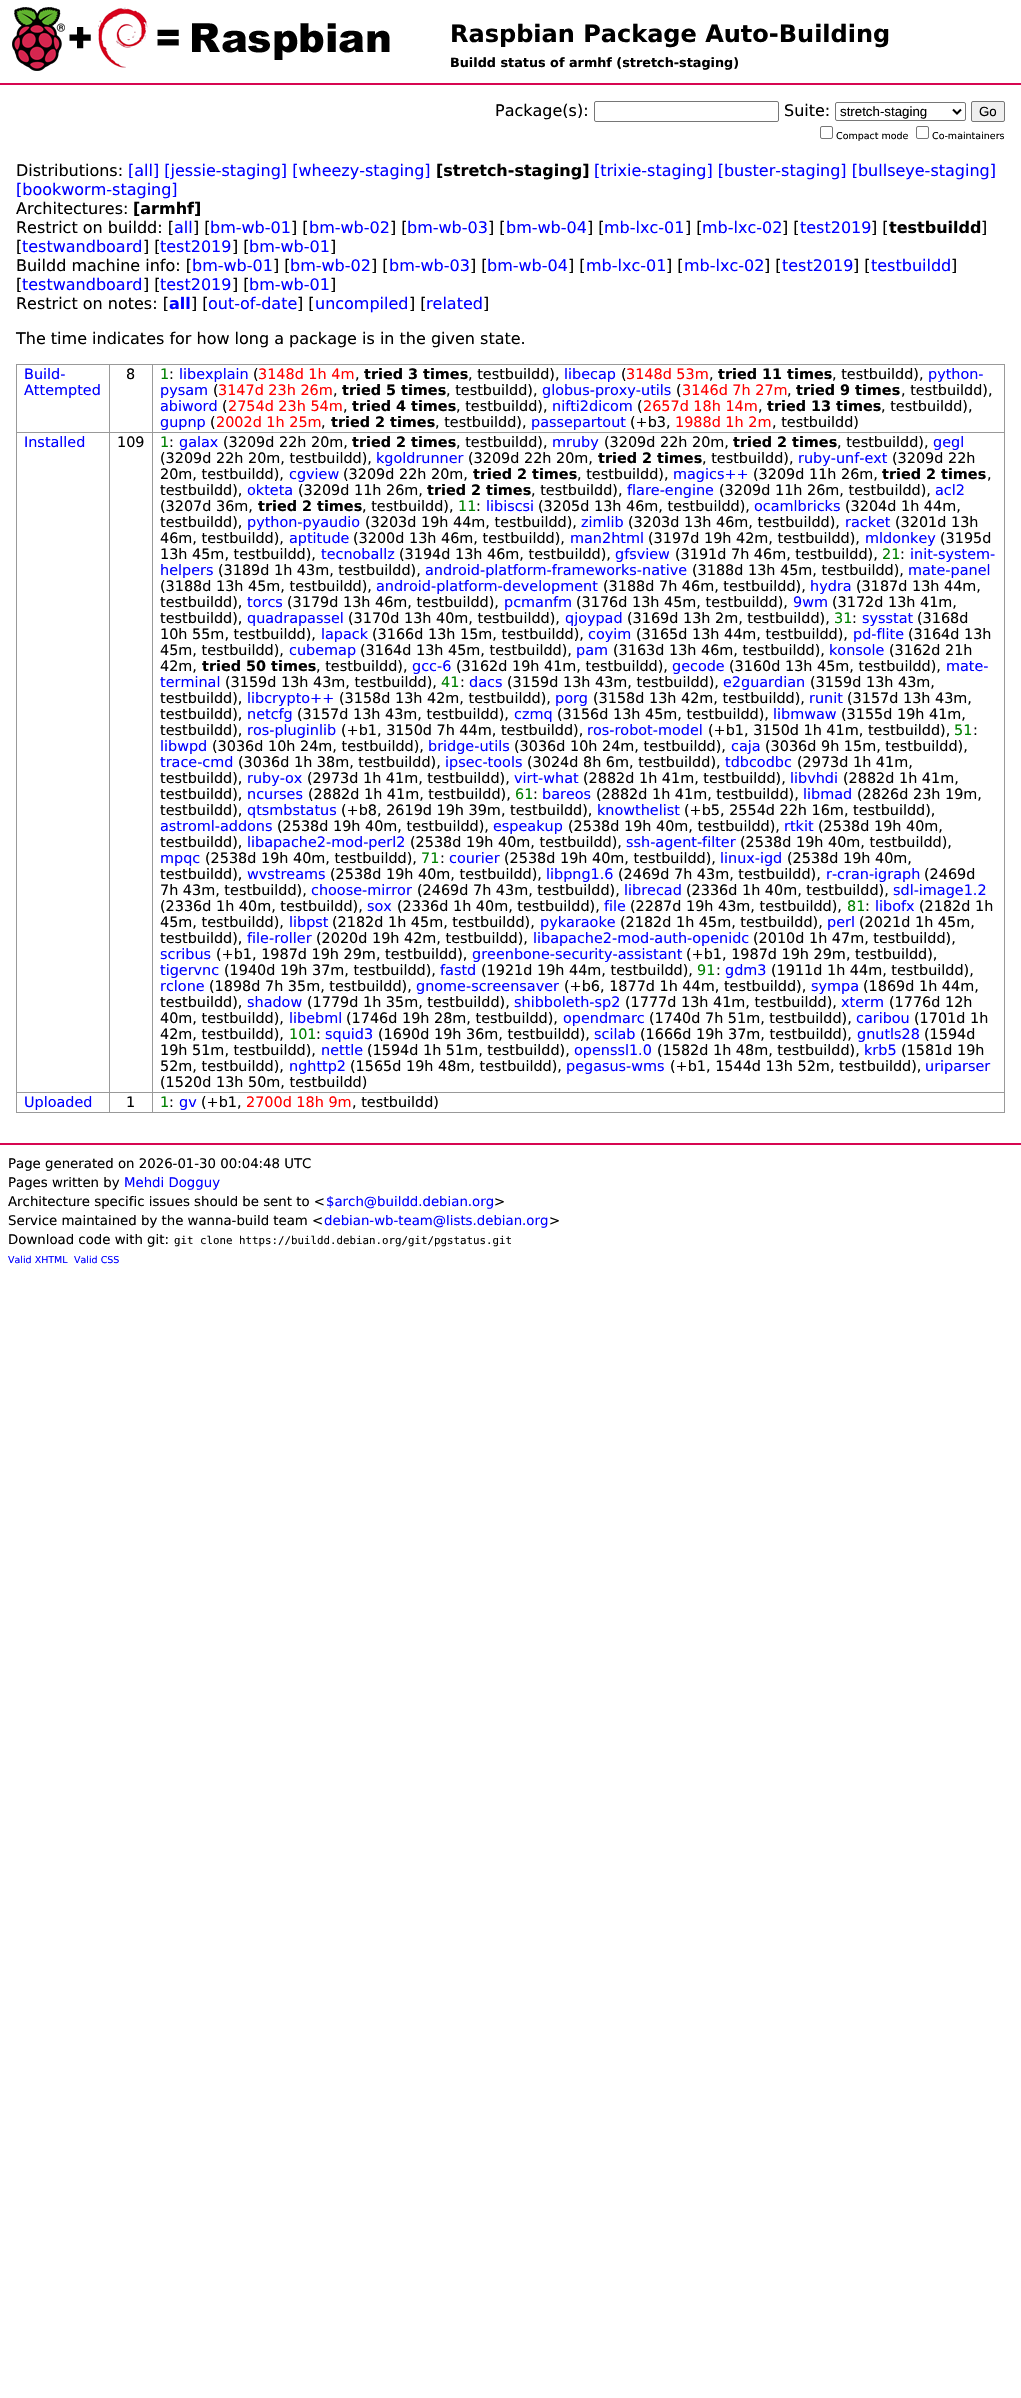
void draw(SkCanvas* canvas) {
    SkPaint paint;
    paint.setAntiAlias(true);
    auto face = [&](const char* family, int weight, float size, bool italic = false) {
        SkFontStyle style(weight, SkFontStyle::kNormal_Width,
            italic ? SkFontStyle::kItalic_Slant : SkFontStyle::kUpright_Slant);
        SkFont result(fontMgr->matchFamilyStyle(family, style), size);
        result.setSubpixel(true);
        return result;
    };
    auto write = [&](const char* s, float x, float y, const SkFont& font, SkColor color) {
        SkPaint ink(SkColor4f::FromColor(color));
        ink.setAntiAlias(true);
        canvas->drawString(s, x, y, font, ink);
    };
    auto block = [&](float x, float y, float w, float h, SkColor color) {
        SkPaint ink(SkColor4f::FromColor(color));
        ink.setAntiAlias(true);
        canvas->drawRect(SkRect::MakeXYWH(x, y, w, h), ink);
    };
    auto paste = [&](const char* path, float x, float y, float w, float h) {
        auto image = SkImages::DeferredFromEncodedData(SkData::MakeFromFileName(path));
        canvas->drawImageRect(image, SkRect::MakeXYWH(x, y, w, h), SkSamplingOptions());
    };
    canvas->clear(SK_ColorWHITE);
    paste("pic1.png", 12, 7, 378, 64);
    auto kFont1 = face("DejaVu Sans", 700, 24);
    write("Raspbian Package Auto-Building", 450, 42, kFont1, SK_ColorBLACK);
    auto kFont2 = face("DejaVu Sans", 700, 12.8f);
    write("Buildd status of armhf (stretch-staging)", 450, 67, kFont2, SK_ColorBLACK);
    block(0, 83, 1021, 2, SkColorSetRGB(215, 7, 81));
    auto kFont3 = face("DejaVu Sans", 400, 16);
    write("Package(s):", 495, 116, kFont3, SK_ColorBLACK);
    paint.setStyle(SkPaint::kStroke_Style);
    paint.setStrokeWidth(1);
    paint.setColor(SkColorSetRGB(118, 118, 118));
    canvas->drawRoundRect(SkRect::MakeXYWH(594.5f, 101.5f, 184, 20), 1.5f, 1.5f, paint);
    write("Suite:", 784, 116, kFont3, SK_ColorBLACK);
    canvas->drawRoundRect(SkRect::MakeXYWH(835.5f, 102.5f, 130, 18), 1.5f, 1.5f, paint);
    paint.setStrokeWidth(2);
    paint.setColor(SK_ColorBLACK);
    canvas->drawPath(SkPathBuilder().moveTo(953, 109.5f).lineTo(957, 113.5f).lineTo(961, 109.5f).detach(), paint);
    auto kFont4 = face("Liberation Sans", 400, 13.3f);
    write("stretch-staging", 840, 116, kFont4, SK_ColorBLACK);
    paint.setStyle(SkPaint::kFill_Style);
    paint.setColor(SkColorSetRGB(239, 239, 239));
    canvas->drawRoundRect(SkRect::MakeXYWH(971.5f, 101.5f, 33, 20), 1.5f, 1.5f, paint);
    paint.setStyle(SkPaint::kStroke_Style);
    paint.setStrokeWidth(1);
    paint.setColor(SkColorSetRGB(118, 118, 118));
    canvas->drawRoundRect(SkRect::MakeXYWH(971.5f, 101.5f, 33, 20), 1.5f, 1.5f, paint);
    write("Go", 979, 116, kFont4, SK_ColorBLACK);
    canvas->drawRoundRect(SkRect::MakeXYWH(820.5f, 126.5f, 12, 12), 1.5f, 1.5f, paint);
    auto kFont5 = face("DejaVu Sans", 400, 9.5f);
    write("Compact mode", 836, 139, kFont5, SK_ColorBLACK);
    canvas->drawRoundRect(SkRect::MakeXYWH(916.5f, 126.5f, 12, 12), 1.5f, 1.5f, paint);
    write("Co-maintainers", 932, 139, kFont5, SK_ColorBLACK);
    write("Distributions:", 16, 176, kFont3, SK_ColorBLACK);
    write("[all] [jessie-staging] [wheezy-staging]", 128, 176, kFont3, SkColorSetRGB(0, 0, 255));
    auto kFont6 = face("DejaVu Sans", 700, 16);
    write("[stretch-staging]", 436, 176, kFont6, SK_ColorBLACK);
    write("[trixie-staging] [buster-staging] [bullseye-staging]", 594, 176, kFont3, SkColorSetRGB(0, 0, 255));
    write("[bookworm-staging]", 16, 195, kFont3, SkColorSetRGB(0, 0, 255));
    write("Architectures:", 16, 214, kFont3, SK_ColorBLACK);
    write("[armhf]", 133, 214, kFont6, SK_ColorBLACK);
    write("Restrict on buildd: [", 16, 233, kFont3, SK_ColorBLACK);
    write("all", 174, 233, kFont3, SkColorSetRGB(0, 0, 255));
    write("] [", 193, 233, kFont3, SK_ColorBLACK);
    write("bm-wb-01", 210, 233, kFont3, SkColorSetRGB(0, 0, 255));
    write("] [", 291, 233, kFont3, SK_ColorBLACK);
    write("bm-wb-02", 309, 233, kFont3, SkColorSetRGB(0, 0, 255));
    write("] [", 390, 233, kFont3, SK_ColorBLACK);
    write("bm-wb-03", 407, 233, kFont3, SkColorSetRGB(0, 0, 255));
    write("] [", 488, 233, kFont3, SK_ColorBLACK);
    write("bm-wb-04", 506, 233, kFont3, SkColorSetRGB(0, 0, 255));
    write("] [", 587, 233, kFont3, SK_ColorBLACK);
    write("mb-lxc-01", 604, 233, kFont3, SkColorSetRGB(0, 0, 255));
    write("] [", 685, 233, kFont3, SK_ColorBLACK);
    write("mb-lxc-02", 702, 233, kFont3, SkColorSetRGB(0, 0, 255));
    write("] [", 782, 233, kFont3, SK_ColorBLACK);
    write("test2019", 800, 233, kFont3, SkColorSetRGB(0, 0, 255));
    write("] [", 871, 233, kFont3, SK_ColorBLACK);
    write("testbuildd", 889, 233, kFont6, SK_ColorBLACK);
    write("]", 981, 233, kFont3, SK_ColorBLACK);
    write("[", 16, 252, kFont3, SK_ColorBLACK);
    write("testwandboard", 22, 252, kFont3, SkColorSetRGB(0, 0, 255));
    write("] [", 143, 252, kFont3, SK_ColorBLACK);
    write("test2019", 160, 252, kFont3, SkColorSetRGB(0, 0, 255));
    write("] [", 232, 252, kFont3, SK_ColorBLACK);
    write("bm-wb-01", 249, 252, kFont3, SkColorSetRGB(0, 0, 255));
    write("]", 330, 252, kFont3, SK_ColorBLACK);
    write("Buildd machine info: [", 16, 271, kFont3, SK_ColorBLACK);
    write("bm-wb-01", 192, 271, kFont3, SkColorSetRGB(0, 0, 255));
    write("] [", 273, 271, kFont3, SK_ColorBLACK);
    write("bm-wb-02", 290, 271, kFont3, SkColorSetRGB(0, 0, 255));
    write("] [", 371, 271, kFont3, SK_ColorBLACK);
    write("bm-wb-03", 389, 271, kFont3, SkColorSetRGB(0, 0, 255));
    write("] [", 470, 271, kFont3, SK_ColorBLACK);
    write("bm-wb-04", 487, 271, kFont3, SkColorSetRGB(0, 0, 255));
    write("] [", 568, 271, kFont3, SK_ColorBLACK);
    write("mb-lxc-01", 586, 271, kFont3, SkColorSetRGB(0, 0, 255));
    write("] [", 666, 271, kFont3, SK_ColorBLACK);
    write("mb-lxc-02", 684, 271, kFont3, SkColorSetRGB(0, 0, 255));
    write("] [", 764, 271, kFont3, SK_ColorBLACK);
    write("test2019", 782, 271, kFont3, SkColorSetRGB(0, 0, 255));
    write("] [", 853, 271, kFont3, SK_ColorBLACK);
    write("testbuildd", 871, 271, kFont3, SkColorSetRGB(0, 0, 255));
    write("]", 951, 271, kFont3, SK_ColorBLACK);
    write("[", 16, 290, kFont3, SK_ColorBLACK);
    write("testwandboard", 22, 290, kFont3, SkColorSetRGB(0, 0, 255));
    write("] [", 143, 290, kFont3, SK_ColorBLACK);
    write("test2019", 160, 290, kFont3, SkColorSetRGB(0, 0, 255));
    write("] [", 232, 290, kFont3, SK_ColorBLACK);
    write("bm-wb-01", 249, 290, kFont3, SkColorSetRGB(0, 0, 255));
    write("]", 330, 290, kFont3, SK_ColorBLACK);
    write("Restrict on notes: [", 16, 309, kFont3, SK_ColorBLACK);
    write("all", 169, 309, kFont6, SkColorSetRGB(0, 0, 255));
    write("] [", 191, 309, kFont3, SK_ColorBLACK);
    write("out-of-date", 208, 309, kFont3, SkColorSetRGB(0, 0, 255));
    write("] [", 297, 309, kFont3, SK_ColorBLACK);
    write("uncompiled", 315, 309, kFont3, SkColorSetRGB(0, 0, 255));
    write("] [", 409, 309, kFont3, SK_ColorBLACK);
    write("related", 426, 309, kFont3, SkColorSetRGB(0, 0, 255));
    write("]", 483, 309, kFont3, SK_ColorBLACK);
    write("The time indicates for how long a package is in the given state.", 16, 344, kFont3, SK_ColorBLACK);
    block(16, 364, 989, 1, SkColorSetRGB(153, 153, 153));
    block(1004, 364, 1, 749, SkColorSetRGB(153, 153, 153));
    block(16, 1112, 989, 1, SkColorSetRGB(153, 153, 153));
    block(16, 364, 1, 749, SkColorSetRGB(153, 153, 153));
    auto kFont7 = face("DejaVu Sans", 400, 14.4f);
    write("Build-", 24, 379, kFont7, SkColorSetRGB(0, 0, 255));
    write("Attempted", 24, 395, kFont7, SkColorSetRGB(0, 0, 255));
    block(152, 432, 853, 1, SkColorSetRGB(153, 153, 153));
    block(152, 1092, 853, 1, SkColorSetRGB(153, 153, 153));
    block(152, 1092, 1, 21, SkColorSetRGB(153, 153, 153));
    block(109, 1092, 44, 1, SkColorSetRGB(153, 153, 153));
    block(152, 432, 1, 661, SkColorSetRGB(153, 153, 153));
    block(109, 432, 44, 1, SkColorSetRGB(153, 153, 153));
    block(109, 1092, 1, 21, SkColorSetRGB(153, 153, 153));
    block(16, 1092, 94, 1, SkColorSetRGB(153, 153, 153));
    block(109, 432, 1, 661, SkColorSetRGB(153, 153, 153));
    block(16, 432, 94, 1, SkColorSetRGB(153, 153, 153));
    block(109, 364, 1, 69, SkColorSetRGB(153, 153, 153));
    write("8", 126, 379, kFont7, SK_ColorBLACK);
    block(152, 364, 1, 69, SkColorSetRGB(153, 153, 153));
    write("1", 160, 379, kFont7, SkColorSetRGB(0, 128, 0));
    write(":", 169, 379, kFont7, SK_ColorBLACK);
    write("libexplain", 179, 379, kFont7, SkColorSetRGB(0, 0, 255));
    write("(", 253, 379, kFont7, SK_ColorBLACK);
    write("3148d 1h 4m", 258, 379, kFont7, SkColorSetRGB(255, 0, 0));
    write(",", 355, 379, kFont7, SK_ColorBLACK);
    auto kFont8 = face("DejaVu Sans", 700, 14.4f);
    write("tried 3 times", 364, 379, kFont8, SK_ColorBLACK);
    write(", testbuildd),", 468, 379, kFont7, SK_ColorBLACK);
    write("libecap", 564, 379, kFont7, SkColorSetRGB(0, 0, 255));
    write("(", 621, 379, kFont7, SK_ColorBLACK);
    write("3148d 53m", 626, 379, kFont7, SkColorSetRGB(255, 0, 0));
    write(",", 709, 379, kFont7, SK_ColorBLACK);
    write("tried 11 times", 718, 379, kFont8, SK_ColorBLACK);
    write(", testbuildd),", 832, 379, kFont7, SK_ColorBLACK);
    write("python-", 928, 379, kFont7, SkColorSetRGB(0, 0, 255));
    write("pysam", 160, 395, kFont7, SkColorSetRGB(0, 0, 255));
    write("(", 213, 395, kFont7, SK_ColorBLACK);
    write("3147d 23h 26m", 218, 395, kFont7, SkColorSetRGB(255, 0, 0));
    write(",", 333, 395, kFont7, SK_ColorBLACK);
    write("tried 5 times", 342, 395, kFont8, SK_ColorBLACK);
    write(", testbuildd),", 446, 395, kFont7, SK_ColorBLACK);
    write("globus-proxy-utils", 542, 395, kFont7, SkColorSetRGB(0, 0, 255));
    write("(", 676, 395, kFont7, SK_ColorBLACK);
    write("3146d 7h 27m", 682, 395, kFont7, SkColorSetRGB(255, 0, 0));
    write(",", 787, 395, kFont7, SK_ColorBLACK);
    write("tried 9 times", 796, 395, kFont8, SK_ColorBLACK);
    write(", testbuildd),", 901, 395, kFont7, SK_ColorBLACK);
    write("abiword", 160, 411, kFont7, SkColorSetRGB(0, 0, 255));
    write("(", 222, 411, kFont7, SK_ColorBLACK);
    write("2754d 23h 54m", 228, 411, kFont7, SkColorSetRGB(255, 0, 0));
    write(",", 343, 411, kFont7, SK_ColorBLACK);
    write("tried 4 times", 352, 411, kFont8, SK_ColorBLACK);
    write(", testbuildd),", 456, 411, kFont7, SK_ColorBLACK);
    write("nifti2dicom", 552, 411, kFont7, SkColorSetRGB(0, 0, 255));
    write("(", 637, 411, kFont7, SK_ColorBLACK);
    write("2657d 18h 14m", 643, 411, kFont7, SkColorSetRGB(255, 0, 0));
    write(",", 758, 411, kFont7, SK_ColorBLACK);
    write("tried 13 times", 767, 411, kFont8, SK_ColorBLACK);
    write(", testbuildd),", 881, 411, kFont7, SK_ColorBLACK);
    write("gupnp", 160, 427, kFont7, SkColorSetRGB(0, 0, 255));
    write("(", 210, 427, kFont7, SK_ColorBLACK);
    write("2002d 1h 25m", 216, 427, kFont7, SkColorSetRGB(255, 0, 0));
    write(",", 321, 427, kFont7, SK_ColorBLACK);
    write("tried 2 times", 331, 427, kFont8, SK_ColorBLACK);
    write(", testbuildd),", 435, 427, kFont7, SK_ColorBLACK);
    write("passepartout", 531, 427, kFont7, SkColorSetRGB(0, 0, 255));
    write("(+b3,", 630, 427, kFont7, SK_ColorBLACK);
    write("1988d 1h 2m", 675, 427, kFont7, SkColorSetRGB(255, 0, 0));
    write(", testbuildd)", 772, 427, kFont7, SK_ColorBLACK);
    write("Installed", 24, 447, kFont7, SkColorSetRGB(0, 0, 255));
    write("109", 117, 447, kFont7, SK_ColorBLACK);
    write("1", 160, 447, kFont7, SkColorSetRGB(0, 128, 0));
    write(":", 169, 447, kFont7, SK_ColorBLACK);
    write("galax", 179, 447, kFont7, SkColorSetRGB(0, 0, 255));
    write("(3209d 22h 20m,", 223, 447, kFont7, SK_ColorBLACK);
    write("tried 2 times", 352, 447, kFont8, SK_ColorBLACK);
    write(", testbuildd),", 456, 447, kFont7, SK_ColorBLACK);
    write("mruby", 552, 447, kFont7, SkColorSetRGB(0, 0, 255));
    write("(3209d 22h 20m,", 604, 447, kFont7, SK_ColorBLACK);
    write("tried 2 times", 733, 447, kFont8, SK_ColorBLACK);
    write(", testbuildd),", 837, 447, kFont7, SK_ColorBLACK);
    write("gegl", 933, 447, kFont7, SkColorSetRGB(0, 0, 255));
    write("(3209d 22h 20m, testbuildd),", 160, 463, kFont7, SK_ColorBLACK);
    write("kgoldrunner", 376, 463, kFont7, SkColorSetRGB(0, 0, 255));
    write("(3209d 22h 20m,", 468, 463, kFont7, SK_ColorBLACK);
    write("tried 2 times", 598, 463, kFont8, SK_ColorBLACK);
    write(", testbuildd),", 702, 463, kFont7, SK_ColorBLACK);
    write("ruby-unf-ext", 798, 463, kFont7, SkColorSetRGB(0, 0, 255));
    write("(3209d 22h", 892, 463, kFont7, SK_ColorBLACK);
    write("20m, testbuildd),", 160, 479, kFont7, SK_ColorBLACK);
    write("cgview", 289, 479, kFont7, SkColorSetRGB(0, 0, 255));
    write("(3209d 22h 20m,", 343, 479, kFont7, SK_ColorBLACK);
    write("tried 2 times", 473, 479, kFont8, SK_ColorBLACK);
    write(", testbuildd),", 577, 479, kFont7, SK_ColorBLACK);
    write("magics++", 673, 479, kFont7, SkColorSetRGB(0, 0, 255));
    write("(3209d 11h 26m,", 753, 479, kFont7, SK_ColorBLACK);
    write("tried 2 times", 882, 479, kFont8, SK_ColorBLACK);
    write(",", 987, 479, kFont7, SK_ColorBLACK);
    write("testbuildd),", 160, 495, kFont7, SK_ColorBLACK);
    write("okteta", 247, 495, kFont7, SkColorSetRGB(0, 0, 255));
    write("(3209d 11h 26m,", 298, 495, kFont7, SK_ColorBLACK);
    write("tried 2 times", 427, 495, kFont8, SK_ColorBLACK);
    write(", testbuildd),", 531, 495, kFont7, SK_ColorBLACK);
    write("flare-engine", 627, 495, kFont7, SkColorSetRGB(0, 0, 255));
    write("(3209d 11h 26m, testbuildd),", 719, 495, kFont7, SK_ColorBLACK);
    write("acl2", 935, 495, kFont7, SkColorSetRGB(0, 0, 255));
    write("(3207d 36m,", 160, 511, kFont7, SK_ColorBLACK);
    write("tried 2 times", 258, 511, kFont8, SK_ColorBLACK);
    write(", testbuildd),", 362, 511, kFont7, SK_ColorBLACK);
    write("11", 458, 511, kFont7, SkColorSetRGB(0, 128, 0));
    write(":", 476, 511, kFont7, SK_ColorBLACK);
    write("libiscsi", 486, 511, kFont7, SkColorSetRGB(0, 0, 255));
    write("(3205d 13h 46m, testbuildd),", 538, 511, kFont7, SK_ColorBLACK);
    write("ocamlbricks", 754, 511, kFont7, SkColorSetRGB(0, 0, 255));
    write("(3204d 1h 44m,", 845, 511, kFont7, SK_ColorBLACK);
    write("testbuildd),", 160, 527, kFont7, SK_ColorBLACK);
    write("python-pyaudio", 247, 527, kFont7, SkColorSetRGB(0, 0, 255));
    write("(3203d 19h 44m, testbuildd),", 365, 527, kFont7, SK_ColorBLACK);
    write("zimlib", 581, 527, kFont7, SkColorSetRGB(0, 0, 255));
    write("(3203d 13h 46m, testbuildd),", 628, 527, kFont7, SK_ColorBLACK);
    write("racket", 845, 527, kFont7, SkColorSetRGB(0, 0, 255));
    write("(3201d 13h", 895, 527, kFont7, SK_ColorBLACK);
    write("46m, testbuildd),", 160, 543, kFont7, SK_ColorBLACK);
    write("aptitude", 289, 543, kFont7, SkColorSetRGB(0, 0, 255));
    write("(3200d 13h 46m, testbuildd),", 353, 543, kFont7, SK_ColorBLACK);
    write("man2html", 570, 543, kFont7, SkColorSetRGB(0, 0, 255));
    write("(3197d 19h 42m, testbuildd),", 648, 543, kFont7, SK_ColorBLACK);
    write("mldonkey", 865, 543, kFont7, SkColorSetRGB(0, 0, 255));
    write("(3195d", 940, 543, kFont7, SK_ColorBLACK);
    write("13h 45m, testbuildd),", 160, 559, kFont7, SK_ColorBLACK);
    write("tecnoballz", 321, 559, kFont7, SkColorSetRGB(0, 0, 255));
    write("(3194d 13h 46m, testbuildd),", 399, 559, kFont7, SK_ColorBLACK);
    write("gfsview", 615, 559, kFont7, SkColorSetRGB(0, 0, 255));
    write("(3191d 7h 46m, testbuildd),", 675, 559, kFont7, SK_ColorBLACK);
    write("21", 882, 559, kFont7, SkColorSetRGB(0, 128, 0));
    write(":", 900, 559, kFont7, SK_ColorBLACK);
    write("init-system-", 910, 559, kFont7, SkColorSetRGB(0, 0, 255));
    write("helpers", 160, 575, kFont7, SkColorSetRGB(0, 0, 255));
    write("(3189d 1h 43m, testbuildd),", 218, 575, kFont7, SK_ColorBLACK);
    write("android-platform-frameworks-native", 425, 575, kFont7, SkColorSetRGB(0, 0, 255));
    write("(3188d 13h 45m, testbuildd),", 692, 575, kFont7, SK_ColorBLACK);
    write("mate-panel", 908, 575, kFont7, SkColorSetRGB(0, 0, 255));
    write("(3188d 13h 45m, testbuildd),", 160, 591, kFont7, SK_ColorBLACK);
    write("android-platform-development", 376, 591, kFont7, SkColorSetRGB(0, 0, 255));
    write("(3188d 7h 46m, testbuildd),", 603, 591, kFont7, SK_ColorBLACK);
    write("hydra", 810, 591, kFont7, SkColorSetRGB(0, 0, 255));
    write("(3187d 13h 44m,", 856, 591, kFont7, SK_ColorBLACK);
    write("testbuildd),", 160, 607, kFont7, SK_ColorBLACK);
    write("torcs", 247, 607, kFont7, SkColorSetRGB(0, 0, 255));
    write("(3179d 13h 46m, testbuildd),", 287, 607, kFont7, SK_ColorBLACK);
    write("pcmanfm", 504, 607, kFont7, SkColorSetRGB(0, 0, 255));
    write("(3176d 13h 45m, testbuildd),", 576, 607, kFont7, SK_ColorBLACK);
    write("9wm", 793, 607, kFont7, SkColorSetRGB(0, 0, 255));
    write("(3172d 13h 41m,", 832, 607, kFont7, SK_ColorBLACK);
    write("testbuildd),", 160, 623, kFont7, SK_ColorBLACK);
    write("quadrapassel", 247, 623, kFont7, SkColorSetRGB(0, 0, 255));
    write("(3170d 13h 40m, testbuildd),", 348, 623, kFont7, SK_ColorBLACK);
    write("qjoypad", 565, 623, kFont7, SkColorSetRGB(0, 0, 255));
    write("(3169d 13h 2m, testbuildd),", 627, 623, kFont7, SK_ColorBLACK);
    write("31", 834, 623, kFont7, SkColorSetRGB(0, 128, 0));
    write(":", 852, 623, kFont7, SK_ColorBLACK);
    write("sysstat", 862, 623, kFont7, SkColorSetRGB(0, 0, 255));
    write("(3168d", 917, 623, kFont7, SK_ColorBLACK);
    write("10h 55m, testbuildd),", 160, 639, kFont7, SK_ColorBLACK);
    write("lapack", 321, 639, kFont7, SkColorSetRGB(0, 0, 255));
    write("(3166d 13h 15m, testbuildd),", 372, 639, kFont7, SK_ColorBLACK);
    write("coyim", 588, 639, kFont7, SkColorSetRGB(0, 0, 255));
    write("(3165d 13h 44m, testbuildd),", 636, 639, kFont7, SK_ColorBLACK);
    write("pd-flite", 853, 639, kFont7, SkColorSetRGB(0, 0, 255));
    write("(3164d 13h", 908, 639, kFont7, SK_ColorBLACK);
    write("45m, testbuildd),", 160, 655, kFont7, SK_ColorBLACK);
    write("cubemap", 289, 655, kFont7, SkColorSetRGB(0, 0, 255));
    write("(3164d 13h 45m, testbuildd),", 360, 655, kFont7, SK_ColorBLACK);
    write("pam", 576, 655, kFont7, SkColorSetRGB(0, 0, 255));
    write("(3163d 13h 46m, testbuildd),", 613, 655, kFont7, SK_ColorBLACK);
    write("konsole", 829, 655, kFont7, SkColorSetRGB(0, 0, 255));
    write("(3162d 21h", 889, 655, kFont7, SK_ColorBLACK);
    write("42m,", 160, 671, kFont7, SK_ColorBLACK);
    write("tried 50 times", 202, 671, kFont8, SK_ColorBLACK);
    write(", testbuildd),", 316, 671, kFont7, SK_ColorBLACK);
    write("gcc-6", 412, 671, kFont7, SkColorSetRGB(0, 0, 255));
    write("(3162d 19h 41m, testbuildd),", 456, 671, kFont7, SK_ColorBLACK);
    write("gecode", 672, 671, kFont7, SkColorSetRGB(0, 0, 255));
    write("(3160d 13h 45m, testbuildd),", 729, 671, kFont7, SK_ColorBLACK);
    write("mate-", 946, 671, kFont7, SkColorSetRGB(0, 0, 255));
    write("terminal", 160, 687, kFont7, SkColorSetRGB(0, 0, 255));
    write("(3159d 13h 43m, testbuildd),", 225, 687, kFont7, SK_ColorBLACK);
    write("41", 441, 687, kFont7, SkColorSetRGB(0, 128, 0));
    write(":", 460, 687, kFont7, SK_ColorBLACK);
    write("dacs", 469, 687, kFont7, SkColorSetRGB(0, 0, 255));
    write("(3159d 13h 43m, testbuildd),", 507, 687, kFont7, SK_ColorBLACK);
    write("e2guardian", 723, 687, kFont7, SkColorSetRGB(0, 0, 255));
    write("(3159d 13h 43m,", 810, 687, kFont7, SK_ColorBLACK);
    write("testbuildd),", 160, 703, kFont7, SK_ColorBLACK);
    write("libcrypto++", 247, 703, kFont7, SkColorSetRGB(0, 0, 255));
    write("(3158d 13h 42m, testbuildd),", 339, 703, kFont7, SK_ColorBLACK);
    write("porg", 555, 703, kFont7, SkColorSetRGB(0, 0, 255));
    write("(3158d 13h 42m, testbuildd),", 593, 703, kFont7, SK_ColorBLACK);
    write("runit", 809, 703, kFont7, SkColorSetRGB(0, 0, 255));
    write("(3157d 13h 43m,", 847, 703, kFont7, SK_ColorBLACK);
    write("testbuildd),", 160, 719, kFont7, SK_ColorBLACK);
    write("netcfg", 247, 719, kFont7, SkColorSetRGB(0, 0, 255));
    write("(3157d 13h 43m, testbuildd),", 297, 719, kFont7, SK_ColorBLACK);
    write("czmq", 514, 719, kFont7, SkColorSetRGB(0, 0, 255));
    write("(3156d 13h 45m, testbuildd),", 557, 719, kFont7, SK_ColorBLACK);
    write("libmwaw", 773, 719, kFont7, SkColorSetRGB(0, 0, 255));
    write("(3155d 19h 41m,", 841, 719, kFont7, SK_ColorBLACK);
    write("testbuildd),", 160, 735, kFont7, SK_ColorBLACK);
    write("ros-pluginlib", 247, 735, kFont7, SkColorSetRGB(0, 0, 255));
    write("(+b1, 3150d 7h 44m, testbuildd),", 341, 735, kFont7, SK_ColorBLACK);
    write("ros-robot-model", 587, 735, kFont7, SkColorSetRGB(0, 0, 255));
    write("(+b1, 3150d 1h 41m, testbuildd),", 708, 735, kFont7, SK_ColorBLACK);
    write("51", 954, 735, kFont7, SkColorSetRGB(0, 128, 0));
    write(":", 973, 735, kFont7, SK_ColorBLACK);
    write("libwpd", 160, 751, kFont7, SkColorSetRGB(0, 0, 255));
    write("(3036d 10h 24m, testbuildd),", 212, 751, kFont7, SK_ColorBLACK);
    write("bridge-utils", 428, 751, kFont7, SkColorSetRGB(0, 0, 255));
    write("(3036d 10h 24m, testbuildd),", 514, 751, kFont7, SK_ColorBLACK);
    write("caja", 731, 751, kFont7, SkColorSetRGB(0, 0, 255));
    write("(3036d 9h 15m, testbuildd),", 765, 751, kFont7, SK_ColorBLACK);
    write("trace-cmd", 160, 767, kFont7, SkColorSetRGB(0, 0, 255));
    write("(3036d 1h 38m, testbuildd),", 238, 767, kFont7, SK_ColorBLACK);
    write("ipsec-tools", 445, 767, kFont7, SkColorSetRGB(0, 0, 255));
    write("(3024d 8h 6m, testbuildd),", 527, 767, kFont7, SK_ColorBLACK);
    write("tdbcodbc", 725, 767, kFont7, SkColorSetRGB(0, 0, 255));
    write("(2973d 1h 41m,", 797, 767, kFont7, SK_ColorBLACK);
    write("testbuildd),", 160, 783, kFont7, SK_ColorBLACK);
    write("ruby-ox", 247, 783, kFont7, SkColorSetRGB(0, 0, 255));
    write("(2973d 1h 41m, testbuildd),", 307, 783, kFont7, SK_ColorBLACK);
    write("virt-what", 514, 783, kFont7, SkColorSetRGB(0, 0, 255));
    write("(2882d 1h 41m, testbuildd),", 583, 783, kFont7, SK_ColorBLACK);
    write("libvhdi", 790, 783, kFont7, SkColorSetRGB(0, 0, 255));
    write("(2882d 1h 41m,", 843, 783, kFont7, SK_ColorBLACK);
    write("testbuildd),", 160, 799, kFont7, SK_ColorBLACK);
    write("ncurses", 247, 799, kFont7, SkColorSetRGB(0, 0, 255));
    write("(2882d 1h 41m, testbuildd),", 308, 799, kFont7, SK_ColorBLACK);
    write("61", 515, 799, kFont7, SkColorSetRGB(0, 128, 0));
    write(":", 533, 799, kFont7, SK_ColorBLACK);
    write("bareos", 542, 799, kFont7, SkColorSetRGB(0, 0, 255));
    write("(2882d 1h 41m, testbuildd),", 596, 799, kFont7, SK_ColorBLACK);
    write("libmad", 803, 799, kFont7, SkColorSetRGB(0, 0, 255));
    write("(2826d 23h 19m,", 857, 799, kFont7, SK_ColorBLACK);
    write("testbuildd),", 160, 815, kFont7, SK_ColorBLACK);
    write("qtsmbstatus", 247, 815, kFont7, SkColorSetRGB(0, 0, 255));
    write("(+b8, 2619d 19h 39m, testbuildd),", 341, 815, kFont7, SK_ColorBLACK);
    write("knowthelist", 597, 815, kFont7, SkColorSetRGB(0, 0, 255));
    write("(+b5, 2554d 22h 16m, testbuildd),", 684, 815, kFont7, SK_ColorBLACK);
    write("astroml-addons", 160, 831, kFont7, SkColorSetRGB(0, 0, 255));
    write("(2538d 19h 40m, testbuildd),", 277, 831, kFont7, SK_ColorBLACK);
    write("espeakup", 493, 831, kFont7, SkColorSetRGB(0, 0, 255));
    write("(2538d 19h 40m, testbuildd),", 568, 831, kFont7, SK_ColorBLACK);
    write("rtkit", 784, 831, kFont7, SkColorSetRGB(0, 0, 255));
    write("(2538d 19h 40m,", 818, 831, kFont7, SK_ColorBLACK);
    write("testbuildd),", 160, 847, kFont7, SK_ColorBLACK);
    write("libapache2-mod-perl2", 247, 847, kFont7, SkColorSetRGB(0, 0, 255));
    write("(2538d 19h 40m, testbuildd),", 410, 847, kFont7, SK_ColorBLACK);
    write("ssh-agent-filter", 626, 847, kFont7, SkColorSetRGB(0, 0, 255));
    write("(2538d 19h 40m, testbuildd),", 740, 847, kFont7, SK_ColorBLACK);
    write("mpqc", 160, 863, kFont7, SkColorSetRGB(0, 0, 255));
    write("(2538d 19h 40m, testbuildd),", 205, 863, kFont7, SK_ColorBLACK);
    write("71", 421, 863, kFont7, SkColorSetRGB(0, 128, 0));
    write(":", 440, 863, kFont7, SK_ColorBLACK);
    write("courier", 449, 863, kFont7, SkColorSetRGB(0, 0, 255));
    write("(2538d 19h 40m, testbuildd),", 504, 863, kFont7, SK_ColorBLACK);
    write("linux-igd", 720, 863, kFont7, SkColorSetRGB(0, 0, 255));
    write("(2538d 19h 40m,", 787, 863, kFont7, SK_ColorBLACK);
    write("testbuildd),", 160, 879, kFont7, SK_ColorBLACK);
    write("wvstreams", 247, 879, kFont7, SkColorSetRGB(0, 0, 255));
    write("(2538d 19h 40m, testbuildd),", 330, 879, kFont7, SK_ColorBLACK);
    write("libpng1.6", 546, 879, kFont7, SkColorSetRGB(0, 0, 255));
    write("(2469d 7h 43m, testbuildd),", 618, 879, kFont7, SK_ColorBLACK);
    write("r-cran-igraph", 826, 879, kFont7, SkColorSetRGB(0, 0, 255));
    write("(2469d", 924, 879, kFont7, SK_ColorBLACK);
    write("7h 43m, testbuildd),", 160, 895, kFont7, SK_ColorBLACK);
    write("choose-mirror", 311, 895, kFont7, SkColorSetRGB(0, 0, 255));
    write("(2469d 7h 43m, testbuildd),", 417, 895, kFont7, SK_ColorBLACK);
    write("librecad", 624, 895, kFont7, SkColorSetRGB(0, 0, 255));
    write("(2336d 1h 40m, testbuildd),", 686, 895, kFont7, SK_ColorBLACK);
    write("sdl-image1.2", 893, 895, kFont7, SkColorSetRGB(0, 0, 255));
    write("(2336d 1h 40m, testbuildd),", 160, 911, kFont7, SK_ColorBLACK);
    write("sox", 367, 911, kFont7, SkColorSetRGB(0, 0, 255));
    write("(2336d 1h 40m, testbuildd),", 397, 911, kFont7, SK_ColorBLACK);
    write("file", 604, 911, kFont7, SkColorSetRGB(0, 0, 255));
    write("(2287d 19h 43m, testbuildd),", 630, 911, kFont7, SK_ColorBLACK);
    write("81", 847, 911, kFont7, SkColorSetRGB(0, 128, 0));
    write(":", 865, 911, kFont7, SK_ColorBLACK);
    write("libofx", 875, 911, kFont7, SkColorSetRGB(0, 0, 255));
    write("(2182d 1h", 919, 911, kFont7, SK_ColorBLACK);
    write("45m, testbuildd),", 160, 927, kFont7, SK_ColorBLACK);
    write("libpst", 289, 927, kFont7, SkColorSetRGB(0, 0, 255));
    write("(2182d 1h 45m, testbuildd),", 332, 927, kFont7, SK_ColorBLACK);
    write("pykaraoke", 540, 927, kFont7, SkColorSetRGB(0, 0, 255));
    write("(2182d 1h 45m, testbuildd),", 620, 927, kFont7, SK_ColorBLACK);
    write("perl", 827, 927, kFont7, SkColorSetRGB(0, 0, 255));
    write("(2021d 1h 45m,", 859, 927, kFont7, SK_ColorBLACK);
    write("testbuildd),", 160, 943, kFont7, SK_ColorBLACK);
    write("file-roller", 247, 943, kFont7, SkColorSetRGB(0, 0, 255));
    write("(2020d 19h 42m, testbuildd),", 316, 943, kFont7, SK_ColorBLACK);
    write("libapache2-mod-auth-openidc", 533, 943, kFont7, SkColorSetRGB(0, 0, 255));
    write("(2010d 1h 47m, testbuildd),", 753, 943, kFont7, SK_ColorBLACK);
    write("scribus", 160, 959, kFont7, SkColorSetRGB(0, 0, 255));
    write("(+b1, 1987d 19h 29m, testbuildd),", 216, 959, kFont7, SK_ColorBLACK);
    write("greenbone-security-assistant", 472, 959, kFont7, SkColorSetRGB(0, 0, 255));
    write("(+b1, 1987d 19h 29m, testbuildd),", 686, 959, kFont7, SK_ColorBLACK);
    write("tigervnc", 160, 975, kFont7, SkColorSetRGB(0, 0, 255));
    write("(1940d 19h 37m, testbuildd),", 224, 975, kFont7, SK_ColorBLACK);
    write("fastd", 440, 975, kFont7, SkColorSetRGB(0, 0, 255));
    write("(1921d 19h 44m, testbuildd),", 481, 975, kFont7, SK_ColorBLACK);
    write("91", 697, 975, kFont7, SkColorSetRGB(0, 128, 0));
    write(":", 716, 975, kFont7, SK_ColorBLACK);
    write("gdm3", 725, 975, kFont7, SkColorSetRGB(0, 0, 255));
    write("(1911d 1h 44m, testbuildd),", 771, 975, kFont7, SK_ColorBLACK);
    write("rclone", 160, 991, kFont7, SkColorSetRGB(0, 0, 255));
    write("(1898d 7h 35m, testbuildd),", 209, 991, kFont7, SK_ColorBLACK);
    write("gnome-screensaver", 416, 991, kFont7, SkColorSetRGB(0, 0, 255));
    write("(+b6, 1877d 1h 44m, testbuildd),", 564, 991, kFont7, SK_ColorBLACK);
    write("sympa", 811, 991, kFont7, SkColorSetRGB(0, 0, 255));
    write("(1869d 1h 44m,", 863, 991, kFont7, SK_ColorBLACK);
    write("testbuildd),", 160, 1007, kFont7, SK_ColorBLACK);
    write("shadow", 247, 1007, kFont7, SkColorSetRGB(0, 0, 255));
    write("(1779d 1h 35m, testbuildd),", 307, 1007, kFont7, SK_ColorBLACK);
    write("shibboleth-sp2", 514, 1007, kFont7, SkColorSetRGB(0, 0, 255));
    write("(1777d 13h 41m, testbuildd),", 625, 1007, kFont7, SK_ColorBLACK);
    write("xterm", 841, 1007, kFont7, SkColorSetRGB(0, 0, 255));
    write("(1776d 12h", 889, 1007, kFont7, SK_ColorBLACK);
    write("40m, testbuildd),", 160, 1023, kFont7, SK_ColorBLACK);
    write("libebml", 289, 1023, kFont7, SkColorSetRGB(0, 0, 255));
    write("(1746d 19h 28m, testbuildd),", 346, 1023, kFont7, SK_ColorBLACK);
    write("opendmarc", 563, 1023, kFont7, SkColorSetRGB(0, 0, 255));
    write("(1740d 7h 51m, testbuildd),", 649, 1023, kFont7, SK_ColorBLACK);
    write("caribou", 856, 1023, kFont7, SkColorSetRGB(0, 0, 255));
    write("(1701d 1h", 914, 1023, kFont7, SK_ColorBLACK);
    write("42m, testbuildd),", 160, 1039, kFont7, SK_ColorBLACK);
    write("101", 289, 1039, kFont7, SkColorSetRGB(0, 128, 0));
    write(":", 316, 1039, kFont7, SK_ColorBLACK);
    write("squid3", 325, 1039, kFont7, SkColorSetRGB(0, 0, 255));
    write("(1690d 19h 36m, testbuildd),", 378, 1039, kFont7, SK_ColorBLACK);
    write("scilab", 594, 1039, kFont7, SkColorSetRGB(0, 0, 255));
    write("(1666d 19h 37m, testbuildd),", 640, 1039, kFont7, SK_ColorBLACK);
    write("gnutls28", 857, 1039, kFont7, SkColorSetRGB(0, 0, 255));
    write("(1594d", 924, 1039, kFont7, SK_ColorBLACK);
    write("19h 51m, testbuildd),", 160, 1055, kFont7, SK_ColorBLACK);
    write("nettle", 321, 1055, kFont7, SkColorSetRGB(0, 0, 255));
    write("(1594d 1h 51m, testbuildd),", 367, 1055, kFont7, SK_ColorBLACK);
    write("openssl1.0", 574, 1055, kFont7, SkColorSetRGB(0, 0, 255));
    write("(1582d 1h 48m, testbuildd),", 657, 1055, kFont7, SK_ColorBLACK);
    write("krb5", 864, 1055, kFont7, SkColorSetRGB(0, 0, 255));
    write("(1581d 19h", 901, 1055, kFont7, SK_ColorBLACK);
    write("52m, testbuildd),", 160, 1071, kFont7, SK_ColorBLACK);
    write("nghttp2", 289, 1071, kFont7, SkColorSetRGB(0, 0, 255));
    write("(1565d 19h 48m, testbuildd),", 350, 1071, kFont7, SK_ColorBLACK);
    write("pegasus-wms", 566, 1071, kFont7, SkColorSetRGB(0, 0, 255));
    write("(+b1, 1544d 13h 52m, testbuildd),", 670, 1071, kFont7, SK_ColorBLACK);
    write("uriparser", 925, 1071, kFont7, SkColorSetRGB(0, 0, 255));
    write("(1520d 13h 50m, testbuildd)", 160, 1087, kFont7, SK_ColorBLACK);
    write("Uploaded", 24, 1107, kFont7, SkColorSetRGB(0, 0, 255));
    write("1", 126, 1107, kFont7, SK_ColorBLACK);
    write("1", 160, 1107, kFont7, SkColorSetRGB(0, 128, 0));
    write(":", 169, 1107, kFont7, SK_ColorBLACK);
    write("gv", 179, 1107, kFont7, SkColorSetRGB(0, 0, 255));
    write("(+b1,", 201, 1107, kFont7, SK_ColorBLACK);
    write("2700d 18h 9m", 246, 1107, kFont7, SkColorSetRGB(255, 0, 0));
    write(", testbuildd)", 352, 1107, kFont7, SK_ColorBLACK);
    block(0, 1143, 1021, 2, SkColorSetRGB(215, 7, 81));
    auto kFont9 = face("DejaVu Sans", 400, 13.3f);
    write("Page generated on 2026-01-30 00:04:48 UTC", 8, 1168, kFont9, SK_ColorBLACK);
    write("Pages written by", 8, 1187, kFont9, SK_ColorBLACK);
    write("Mehdi Dogguy", 124, 1187, kFont9, SkColorSetRGB(0, 0, 255));
    write("Architecture specific issues should be sent to <", 8, 1206, kFont9, SK_ColorBLACK);
    write("$arch@buildd.debian.org", 326, 1206, kFont9, SkColorSetRGB(0, 0, 255));
    write(">", 494, 1206, kFont9, SK_ColorBLACK);
    write("Service maintained by the wanna-build team <", 8, 1225, kFont9, SK_ColorBLACK);
    write("debian-wb-team@lists.debian.org", 324, 1225, kFont9, SkColorSetRGB(0, 0, 255));
    write(">", 549, 1225, kFont9, SK_ColorBLACK);
    write("Download code with git:", 8, 1244, kFont9, SK_ColorBLACK);
    auto kFont10 = face("DejaVu Sans Mono", 400, 10.8f);
    write("git clone https://buildd.debian.org/git/pgstatus.git", 174, 1244, kFont10, SK_ColorBLACK);
    write("Valid XHTML", 8, 1263, kFont5, SkColorSetRGB(0, 0, 255));
    write("Valid CSS", 74, 1263, kFont5, SkColorSetRGB(0, 0, 255));
}
